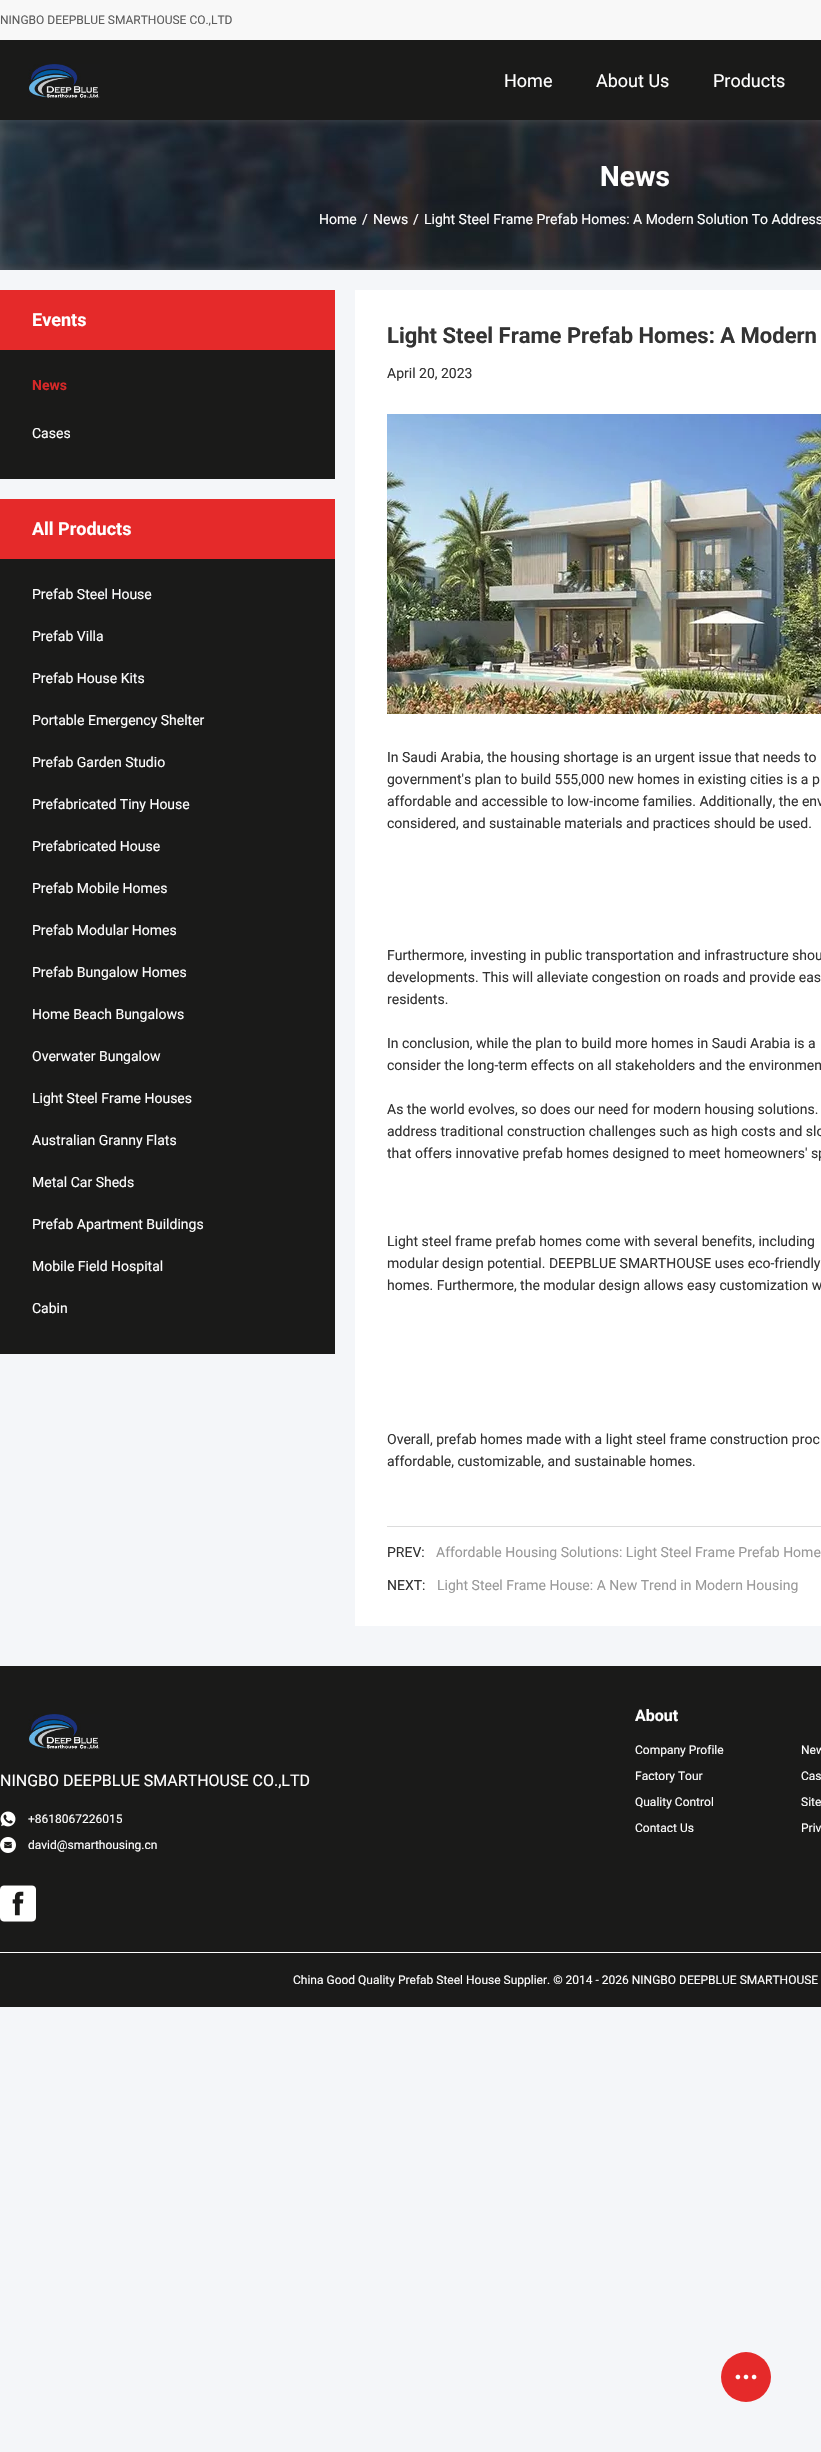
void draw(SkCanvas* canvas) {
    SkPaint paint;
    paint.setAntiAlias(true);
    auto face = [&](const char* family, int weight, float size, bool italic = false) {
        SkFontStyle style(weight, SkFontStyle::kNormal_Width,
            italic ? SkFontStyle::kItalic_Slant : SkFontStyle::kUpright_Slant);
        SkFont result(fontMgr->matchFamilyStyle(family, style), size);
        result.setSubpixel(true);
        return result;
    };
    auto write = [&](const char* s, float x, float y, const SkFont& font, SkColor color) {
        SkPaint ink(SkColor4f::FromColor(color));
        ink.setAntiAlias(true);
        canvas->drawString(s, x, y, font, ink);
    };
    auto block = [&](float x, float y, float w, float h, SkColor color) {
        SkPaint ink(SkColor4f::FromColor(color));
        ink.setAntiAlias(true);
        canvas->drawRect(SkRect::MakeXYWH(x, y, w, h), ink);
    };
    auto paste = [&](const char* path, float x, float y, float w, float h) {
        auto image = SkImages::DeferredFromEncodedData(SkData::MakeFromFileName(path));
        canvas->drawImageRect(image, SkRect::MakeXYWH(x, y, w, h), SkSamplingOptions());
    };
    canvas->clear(SkColorSetRGB(244, 246, 249));
    block(0, 0, 821, 40, SkColorSetRGB(248, 248, 248));
    auto kFont1 = face("Roboto", 400, 12);
    write("NINGBO DEEPBLUE SMARTHOUSE CO.,LTD", 0, 24, kFont1, SkColorSetRGB(93, 93, 93));
    block(0, 40, 821, 80, SkColorSetRGB(26, 26, 25));
    paste("pic1.png", 28, 64, 72, 34);
    auto kFont2 = face("Roboto", 400, 18);
    write("Home", 504, 87, kFont2, SK_ColorWHITE);
    write("About Us", 596, 87, kFont2, SK_ColorWHITE);
    write("Products", 713, 87, kFont2, SK_ColorWHITE);
    paste("pic2.png", 0, 120, 821, 150);
    auto kFont3 = face("Roboto", 700, 28);
    write("News", 600, 186, kFont3, SK_ColorWHITE);
    auto kFont4 = face("Roboto", 400, 14);
    write("Home", 319, 224, kFont4, SK_ColorWHITE);
    write("/", 362, 224, kFont4, SK_ColorWHITE);
    write("News", 373, 224, kFont4, SK_ColorWHITE);
    write("/", 413, 224, kFont4, SK_ColorWHITE);
    write("Light Steel Frame Prefab Homes: A Modern Solution To Address", 424, 224, kFont4, SK_ColorWHITE);
    block(0, 290, 335, 60, SkColorSetRGB(229, 42, 42));
    auto kFont5 = face("Roboto", 700, 18);
    write("Events", 32, 326, kFont5, SK_ColorWHITE);
    block(0, 350, 335, 129, SkColorSetRGB(26, 26, 25));
    auto kFont6 = face("Roboto", 700, 14);
    write("News", 32, 390, kFont6, SkColorSetRGB(213, 40, 40));
    write("Cases", 32, 438, kFont4, SK_ColorWHITE);
    block(0, 499, 335, 60, SkColorSetRGB(229, 42, 42));
    write("All Products", 32, 535, kFont5, SK_ColorWHITE);
    block(0, 559, 335, 795, SkColorSetRGB(26, 26, 25));
    write("Prefab Steel House", 32, 599, kFont4, SK_ColorWHITE);
    write("Prefab Villa", 32, 641, kFont4, SK_ColorWHITE);
    write("Prefab House Kits", 32, 683, kFont4, SK_ColorWHITE);
    write("Portable Emergency Shelter", 32, 725, kFont4, SK_ColorWHITE);
    write("Prefab Garden Studio", 32, 767, kFont4, SK_ColorWHITE);
    write("Prefabricated Tiny House", 32, 809, kFont4, SK_ColorWHITE);
    write("Prefabricated House", 32, 851, kFont4, SK_ColorWHITE);
    write("Prefab Mobile Homes", 32, 893, kFont4, SK_ColorWHITE);
    write("Prefab Modular Homes", 32, 935, kFont4, SK_ColorWHITE);
    write("Prefab Bungalow Homes", 32, 977, kFont4, SK_ColorWHITE);
    write("Home Beach Bungalows", 32, 1019, kFont4, SK_ColorWHITE);
    write("Overwater Bungalow", 32, 1061, kFont4, SK_ColorWHITE);
    write("Light Steel Frame Houses", 32, 1103, kFont4, SK_ColorWHITE);
    write("Australian Granny Flats", 32, 1145, kFont4, SK_ColorWHITE);
    write("Metal Car Sheds", 32, 1187, kFont4, SK_ColorWHITE);
    write("Prefab Apartment Buildings", 32, 1229, kFont4, SK_ColorWHITE);
    write("Mobile Field Hospital", 32, 1271, kFont4, SK_ColorWHITE);
    write("Cabin", 32, 1313, kFont4, SK_ColorWHITE);
    block(355, 290, 466, 1336, SK_ColorWHITE);
    auto kFont7 = face("Roboto", 700, 22);
    write("Light Steel Frame Prefab Homes: A Modern", 387, 343, kFont7, SkColorSetRGB(51, 51, 51));
    write("April 20, 2023", 387, 378, kFont4, SkColorSetRGB(51, 51, 51));
    block(387, 1526, 434, 1, SkColorSetRGB(220, 220, 220));
    paste("pic3.png", 387, 414, 434, 300);
    write("In Saudi Arabia, the housing shortage is an urgent issue that needs to", 387, 762, kFont4, SkColorSetRGB(51, 51, 51));
    write("government's plan to build 555,000 new homes in existing cities is a p", 387, 784, kFont4, SkColorSetRGB(51, 51, 51));
    write("affordable and accessible to low-income families. Additionally, the env", 387, 806, kFont4, SkColorSetRGB(51, 51, 51));
    write("considered, and sustainable materials and practices should be used.", 387, 828, kFont4, SkColorSetRGB(51, 51, 51));
    write("Furthermore, investing in public transportation and infrastructure shou", 387, 960, kFont4, SkColorSetRGB(51, 51, 51));
    write("developments. This will alleviate congestion on roads and provide eas", 387, 982, kFont4, SkColorSetRGB(51, 51, 51));
    write("residents.", 387, 1004, kFont4, SkColorSetRGB(51, 51, 51));
    write("In conclusion, while the plan to build more homes in Saudi Arabia is a", 387, 1048, kFont4, SkColorSetRGB(51, 51, 51));
    write("consider the long-term effects on all stakeholders and the environmen", 387, 1070, kFont4, SkColorSetRGB(51, 51, 51));
    write("As the world evolves, so does our need for modern housing solutions.", 387, 1114, kFont4, SkColorSetRGB(51, 51, 51));
    write("address traditional construction challenges such as high costs and slo", 387, 1136, kFont4, SkColorSetRGB(51, 51, 51));
    write("that offers innovative prefab homes designed to meet homeowners' sp", 387, 1158, kFont4, SkColorSetRGB(51, 51, 51));
    write("Light steel frame prefab homes come with several benefits, including", 387, 1246, kFont4, SkColorSetRGB(51, 51, 51));
    write("modular design potential. DEEPBLUE SMARTHOUSE uses eco-friendly", 387, 1268, kFont4, SkColorSetRGB(51, 51, 51));
    write("homes. Furthermore, the modular design allows easy customization w", 387, 1290, kFont4, SkColorSetRGB(51, 51, 51));
    write("Overall, prefab homes made with a light steel frame construction proc", 387, 1444, kFont4, SkColorSetRGB(51, 51, 51));
    write("affordable, customizable, and sustainable homes.", 387, 1466, kFont4, SkColorSetRGB(51, 51, 51));
    write("PREV:", 387, 1557, kFont4, SkColorSetRGB(51, 51, 51));
    write("Affordable Housing Solutions: Light Steel Frame Prefab Home", 436, 1557, kFont4, SkColorSetRGB(153, 153, 153));
    write("NEXT:", 387, 1590, kFont4, SkColorSetRGB(51, 51, 51));
    write("Light Steel Frame House: A New Trend in Modern Housing", 437, 1590, kFont4, SkColorSetRGB(153, 153, 153));
    block(0, 1666, 821, 341, SkColorSetRGB(26, 26, 25));
    paste("pic4.png", 28, 1714, 72, 35);
    auto kFont8 = face("Roboto", 400, 16);
    write("NINGBO DEEPBLUE SMARTHOUSE CO.,LTD", 0, 1786, kFont8, SK_ColorWHITE);
    paste("pic5.png", 0, 1811, 16, 16);
    write("+8618067226015", 28, 1823, kFont1, SK_ColorWHITE);
    paste("pic6.png", 0, 1837, 16, 16);
    write("david@smarthousing.cn", 28, 1849, kFont1, SK_ColorWHITE);
    paste("pic7.png", 0, 1885, 36, 37);
    auto kFont9 = face("Roboto", 700, 16);
    write("About", 635, 1721, kFont9, SK_ColorWHITE);
    write("Company Profile", 635, 1754, kFont1, SK_ColorWHITE);
    write("Factory Tour", 635, 1780, kFont1, SK_ColorWHITE);
    write("Quality Control", 635, 1806, kFont1, SK_ColorWHITE);
    write("Contact Us", 635, 1832, kFont1, SK_ColorWHITE);
    write("New", 801, 1754, kFont1, SK_ColorWHITE);
    write("Cas", 801, 1780, kFont1, SK_ColorWHITE);
    write("Site", 801, 1806, kFont1, SK_ColorWHITE);
    write("Priv", 801, 1832, kFont1, SK_ColorWHITE);
    block(0, 1952, 821, 1, SK_ColorWHITE);
    write("China Good Quality Prefab Steel House Supplier. © 2014 - 2026 NINGBO DEEPBLUE SMARTHOUSE", 293, 1984, kFont1, SK_ColorWHITE);
    paint.setColor(SkColorSetRGB(229, 42, 42));
    canvas->drawCircle(746, 2377, 25, paint);
    paste("pic8.png", 735, 2374, 22, 6);
}
